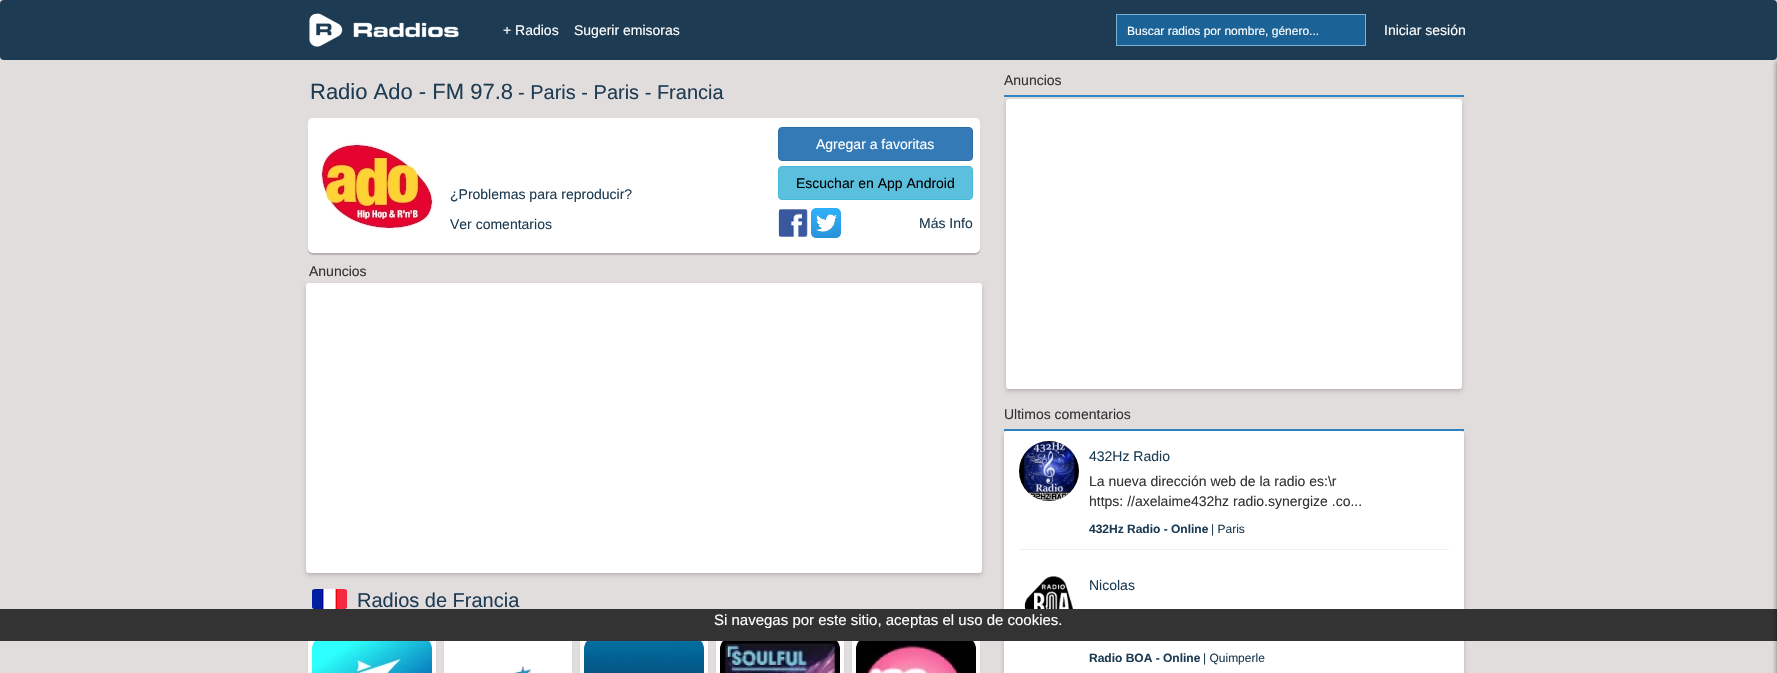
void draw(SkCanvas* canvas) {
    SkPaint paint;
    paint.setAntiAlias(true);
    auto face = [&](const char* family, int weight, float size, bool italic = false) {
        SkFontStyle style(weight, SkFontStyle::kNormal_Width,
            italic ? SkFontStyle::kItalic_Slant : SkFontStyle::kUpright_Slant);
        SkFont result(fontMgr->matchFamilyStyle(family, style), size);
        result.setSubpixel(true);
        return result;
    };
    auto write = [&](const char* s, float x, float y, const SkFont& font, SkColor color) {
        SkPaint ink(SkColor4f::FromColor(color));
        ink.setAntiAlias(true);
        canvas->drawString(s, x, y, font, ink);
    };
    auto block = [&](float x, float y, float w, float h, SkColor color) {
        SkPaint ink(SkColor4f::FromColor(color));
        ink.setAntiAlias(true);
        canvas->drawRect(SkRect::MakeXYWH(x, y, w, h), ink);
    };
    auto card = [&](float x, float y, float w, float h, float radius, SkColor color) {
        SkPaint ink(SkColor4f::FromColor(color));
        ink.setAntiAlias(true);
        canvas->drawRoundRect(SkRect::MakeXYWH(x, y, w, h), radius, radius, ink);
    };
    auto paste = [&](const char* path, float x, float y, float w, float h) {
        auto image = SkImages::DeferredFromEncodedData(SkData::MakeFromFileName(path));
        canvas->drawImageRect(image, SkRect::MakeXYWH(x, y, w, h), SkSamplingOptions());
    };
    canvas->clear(SkColorSetRGB(226, 221, 221));
    card(0, 0, 1777, 60, 4, SkColorSetRGB(29, 60, 83));
    paste("pic1.png", 309, 13, 150, 34);
    auto kFont1 = face("Liberation Sans", 400, 14);
    write("+ Radios", 503, 35, kFont1, SK_ColorWHITE);
    write("Sugerir emisoras", 574, 35, kFont1, SK_ColorWHITE);
    paint.setColor(SkColorSetRGB(27, 98, 150));
    canvas->drawRect(SkRect::MakeXYWH(1116.5f, 14.5f, 249, 31), paint);
    paint.setStyle(SkPaint::kStroke_Style);
    paint.setStrokeWidth(1);
    paint.setColor(SkColorSetRGB(124, 175, 218));
    canvas->drawRect(SkRect::MakeXYWH(1116.5f, 14.5f, 249, 31), paint);
    auto kFont2 = face("Liberation Sans", 400, 12);
    write("Buscar radios por nombre, género...", 1127, 35, kFont2, SK_ColorWHITE);
    write("Iniciar sesión", 1384, 35, kFont1, SK_ColorWHITE);
    paint.setStyle(SkPaint::kFill_Style);
    paint.setColor(SkColorSetARGB(51, 0, 0, 0));
    paint.setMaskFilter(SkMaskFilter::MakeBlur(kNormal_SkBlurStyle, 0.5f));
    canvas->drawRoundRect(SkRect::MakeXYWH(308, 634, 128, 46), 5, 5, paint);
    paint.setMaskFilter(nullptr);
    paint.setMaskFilter(SkMaskFilter::MakeBlur(kNormal_SkBlurStyle, 0.5f));
    canvas->drawRoundRect(SkRect::MakeXYWH(444, 634, 128, 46), 5, 5, paint);
    paint.setMaskFilter(nullptr);
    paint.setMaskFilter(SkMaskFilter::MakeBlur(kNormal_SkBlurStyle, 0.5f));
    canvas->drawRoundRect(SkRect::MakeXYWH(580, 634, 128, 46), 5, 5, paint);
    paint.setMaskFilter(nullptr);
    paint.setMaskFilter(SkMaskFilter::MakeBlur(kNormal_SkBlurStyle, 0.5f));
    canvas->drawRoundRect(SkRect::MakeXYWH(716, 634, 128, 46), 5, 5, paint);
    paint.setMaskFilter(nullptr);
    paint.setMaskFilter(SkMaskFilter::MakeBlur(kNormal_SkBlurStyle, 0.5f));
    canvas->drawRoundRect(SkRect::MakeXYWH(852, 634, 128, 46), 5, 5, paint);
    paint.setMaskFilter(nullptr);
    block(1004, 429, 460, 2, SkColorSetRGB(46, 132, 194));
    paint.setMaskFilter(SkMaskFilter::MakeBlur(kNormal_SkBlurStyle, 2));
    canvas->drawRoundRect(SkRect::MakeXYWH(1004, 433, 460, 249), 3, 3, paint);
    paint.setMaskFilter(nullptr);
    card(1004, 431, 460, 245, 3, SK_ColorWHITE);
    block(0, 609, 1777, 32, SkColorSetRGB(51, 51, 51));
    paint.setColor(SkColorSetARGB(128, 0, 0, 0));
    paint.setMaskFilter(SkMaskFilter::MakeBlur(kNormal_SkBlurStyle, 2.5f));
    canvas->drawRect(SkRect::MakeXYWH(1777, 62, 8, 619), paint);
    paint.setMaskFilter(nullptr);
    auto kFont3 = face("Liberation Sans", 400, 22);
    write("Radio Ado - FM 97.8", 310, 99, kFont3, SkColorSetRGB(29, 60, 83));
    auto kFont4 = face("Liberation Sans", 400, 20);
    write("- Paris - Paris - Francia", 518, 99, kFont4, SkColorSetRGB(29, 60, 83));
    paint.setColor(SkColorSetARGB(51, 0, 0, 0));
    paint.setMaskFilter(SkMaskFilter::MakeBlur(kNormal_SkBlurStyle, 0.5f));
    canvas->drawRoundRect(SkRect::MakeXYWH(308, 120, 672, 135), 5, 5, paint);
    paint.setMaskFilter(nullptr);
    card(308, 118, 672, 135, 5, SK_ColorWHITE);
    paste("pic2.png", 320, 143, 114, 86);
    write("¿Problemas para reproducir?", 450, 199, kFont1, SkColorSetRGB(29, 60, 83));
    write("Ver comentarios", 450, 229, kFont1, SkColorSetRGB(29, 60, 83));
    paint.setColor(SkColorSetRGB(51, 122, 183));
    canvas->drawRoundRect(SkRect::MakeXYWH(778.5f, 127.5f, 194, 33), 3.5f, 3.5f, paint);
    paint.setStyle(SkPaint::kStroke_Style);
    paint.setColor(SkColorSetRGB(46, 109, 164));
    canvas->drawRoundRect(SkRect::MakeXYWH(778.5f, 127.5f, 194, 33), 3.5f, 3.5f, paint);
    write("Agregar a favoritas", 816, 149, kFont1, SK_ColorWHITE);
    paint.setStyle(SkPaint::kFill_Style);
    paint.setColor(SkColorSetRGB(91, 192, 222));
    canvas->drawRoundRect(SkRect::MakeXYWH(778.5f, 166.5f, 194, 33), 3.5f, 3.5f, paint);
    paint.setStyle(SkPaint::kStroke_Style);
    paint.setColor(SkColorSetRGB(70, 184, 218));
    canvas->drawRoundRect(SkRect::MakeXYWH(778.5f, 166.5f, 194, 33), 3.5f, 3.5f, paint);
    write("Escuchar en App Android", 796, 188, kFont1, SK_ColorBLACK);
    paste("pic3.png", 778, 209, 30, 28);
    paste("pic4.png", 811, 208, 30, 30);
    write("Más Info", 919, 228, kFont1, SkColorSetRGB(29, 60, 83));
    write("Anuncios", 309, 276, kFont1, SkColorSetRGB(51, 51, 51));
    paint.setStyle(SkPaint::kFill_Style);
    paint.setColor(SkColorSetARGB(51, 0, 0, 0));
    paint.setMaskFilter(SkMaskFilter::MakeBlur(kNormal_SkBlurStyle, 2));
    canvas->drawRoundRect(SkRect::MakeXYWH(306, 285, 676, 290), 3, 3, paint);
    paint.setMaskFilter(nullptr);
    card(306, 283, 676, 290, 3, SK_ColorWHITE);
    paste("pic5.png", 312, 589, 35, 20);
    write("Radios de Francia", 357, 607, kFont4, SkColorSetRGB(29, 60, 83));
    block(308, 641, 128, 32, SK_ColorWHITE);
    paste("pic6.png", 312, 641, 120, 32);
    block(444, 641, 128, 32, SK_ColorWHITE);
    paste("pic7.png", 514, 666, 18, 7);
    block(580, 641, 128, 32, SK_ColorWHITE);
    paste("pic8.png", 584, 641, 120, 32);
    block(716, 641, 128, 32, SK_ColorWHITE);
    paste("pic9.png", 720, 641, 120, 32);
    block(852, 641, 128, 32, SK_ColorWHITE);
    paste("pic10.png", 856, 641, 120, 32);
    block(1004, 95, 460, 2, SkColorSetRGB(46, 132, 194));
    write("Anuncios", 1004, 85, kFont1, SkColorSetRGB(51, 51, 51));
    paint.setMaskFilter(SkMaskFilter::MakeBlur(kNormal_SkBlurStyle, 2));
    canvas->drawRoundRect(SkRect::MakeXYWH(1006, 101, 456, 290), 3, 3, paint);
    paint.setMaskFilter(nullptr);
    card(1006, 99, 456, 290, 3, SK_ColorWHITE);
    write("Ultimos comentarios", 1004, 419, kFont1, SkColorSetRGB(51, 51, 51));
    paste("pic11.png", 1019, 441, 60, 60);
    write("432Hz Radio", 1089, 461, kFont1, SkColorSetRGB(29, 60, 83));
    write("La nueva dirección web de la radio es:\\r", 1089, 486, kFont1, SkColorSetRGB(51, 51, 51));
    write("https: //axelaime432hz radio.synergize .co...", 1089, 506, kFont1, SkColorSetRGB(51, 51, 51));
    auto kFont5 = face("Liberation Sans", 700, 12);
    write("432Hz Radio - Online", 1089, 533, kFont5, SkColorSetRGB(29, 60, 83));
    write("| Paris", 1211, 533, kFont2, SkColorSetRGB(29, 60, 83));
    paint.setColor(SkColorSetRGB(238, 238, 238));
    canvas->drawPath(SkPathBuilder().moveTo(1062, 549).lineTo(1406, 549).lineTo(1449, 549).lineTo(1449, 550).lineTo(1019, 550).lineTo(1019, 549).close().detach(), paint);
    paste("pic12.png", 1024, 576, 50, 33);
    write("Nicolas", 1089, 590, kFont1, SkColorSetRGB(29, 60, 83));
    write("Radio BOA - Online", 1089, 662, kFont5, SkColorSetRGB(29, 60, 83));
    write("| Quimperle", 1203, 662, kFont2, SkColorSetRGB(29, 60, 83));
    auto kFont6 = face("Liberation Sans", 400, 15);
    write("Si navegas por este sitio, aceptas el uso de cookies.", 714, 625, kFont6, SK_ColorWHITE);
}
